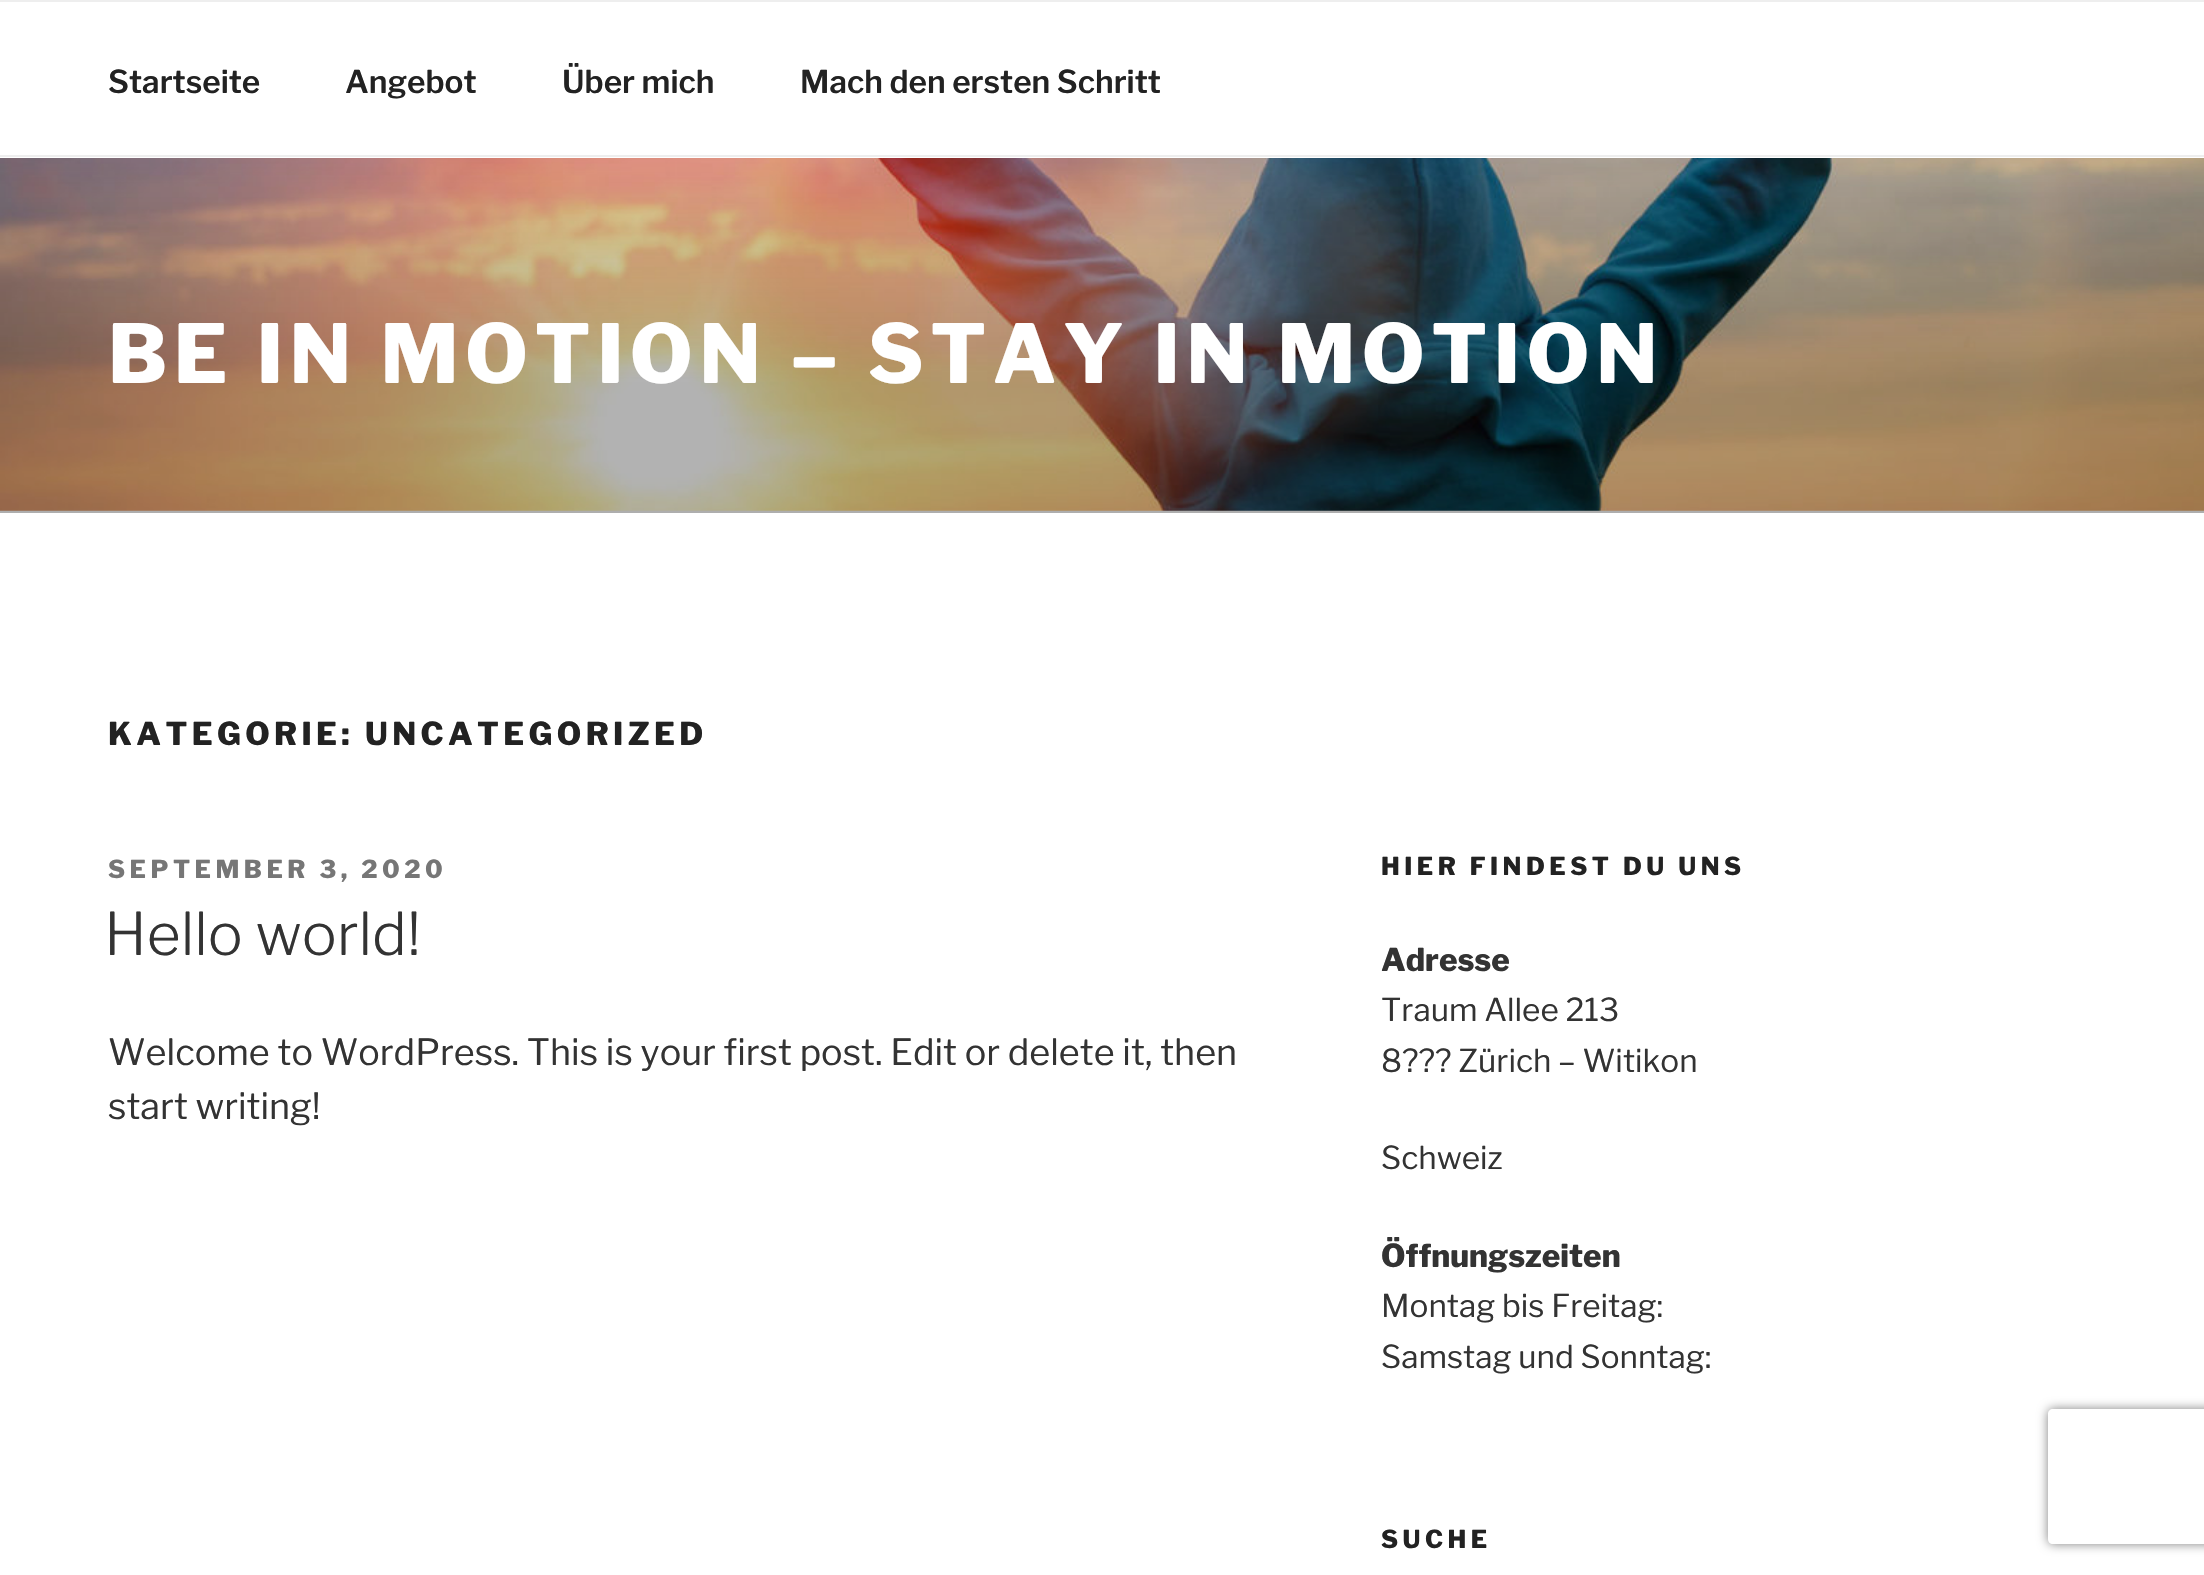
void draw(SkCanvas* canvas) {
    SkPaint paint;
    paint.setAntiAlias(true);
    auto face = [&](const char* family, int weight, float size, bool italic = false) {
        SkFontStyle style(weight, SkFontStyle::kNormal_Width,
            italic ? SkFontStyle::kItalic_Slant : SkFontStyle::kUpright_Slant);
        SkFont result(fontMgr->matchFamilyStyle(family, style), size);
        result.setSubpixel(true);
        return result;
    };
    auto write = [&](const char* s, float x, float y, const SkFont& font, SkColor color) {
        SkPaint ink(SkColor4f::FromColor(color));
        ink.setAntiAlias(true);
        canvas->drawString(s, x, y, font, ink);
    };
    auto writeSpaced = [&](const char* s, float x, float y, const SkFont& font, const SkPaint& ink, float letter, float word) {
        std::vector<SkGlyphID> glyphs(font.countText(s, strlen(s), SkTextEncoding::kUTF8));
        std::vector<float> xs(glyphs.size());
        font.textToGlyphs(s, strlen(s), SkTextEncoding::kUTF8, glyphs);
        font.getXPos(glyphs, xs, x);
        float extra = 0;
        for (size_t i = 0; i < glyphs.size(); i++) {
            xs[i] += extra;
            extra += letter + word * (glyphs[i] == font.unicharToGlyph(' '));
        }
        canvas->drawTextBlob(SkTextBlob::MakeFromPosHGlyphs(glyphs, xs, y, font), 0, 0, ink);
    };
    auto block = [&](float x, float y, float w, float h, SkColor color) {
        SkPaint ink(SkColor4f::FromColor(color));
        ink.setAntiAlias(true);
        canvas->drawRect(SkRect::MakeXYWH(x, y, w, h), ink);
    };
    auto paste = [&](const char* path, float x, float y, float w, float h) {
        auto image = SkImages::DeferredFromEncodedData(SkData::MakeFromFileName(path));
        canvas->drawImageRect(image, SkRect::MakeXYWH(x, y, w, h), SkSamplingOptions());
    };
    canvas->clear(SK_ColorWHITE);
    block(0, 510, 2204, 3, SkColorSetRGB(250, 250, 250));
    block(0, 0, 2204, 2, SkColorSetRGB(238, 238, 238));
    block(0, 155, 2204, 2, SkColorSetRGB(238, 238, 238));
    auto kFont1 = face("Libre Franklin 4", 100, 31.5f);
    write("Startseite", 108, 93, kFont1, SkColorSetRGB(34, 34, 34));
    write("Angebot", 345, 93, kFont1, SkColorSetRGB(34, 34, 34));
    write("Über mich", 562, 93, kFont1, SkColorSetRGB(34, 34, 34));
    write("Mach den ersten Schritt", 800, 93, kFont1, SkColorSetRGB(34, 34, 34));
    paste("pic1.png", 0, 158, 2204, 353);
    {
        const SkColor colors[] = {SkColorSetARGB(0, 0, 0, 0), SkColorSetARGB(77, 0, 0, 0), SkColorSetARGB(77, 0, 0, 0)};
        const float stops[] = {0, 0.75f, 1};
        const SkPoint ends[] = {{1103, 0}, {1103, 513}};
        paint.setShader(SkGradientShader::MakeLinear(ends, colors, stops, 3, SkTileMode::kClamp));
        paint.setAlpha(255);
    }
    canvas->drawRect(SkRect::MakeXYWH(0, 158, 2204, 355), paint);
    auto kFont2 = face("Libre Franklin", 100, 81);
    paint.setShader(nullptr);
    paint.setColor(SK_ColorWHITE);
    writeSpaced("BE IN MOTION – STAY IN MOTION", 108, 383, kFont2, paint, 6.5f, 0);
    auto kFont3 = face("Libre Franklin", 100, 31.5f);
    paint.setColor(SkColorSetRGB(34, 34, 34));
    writeSpaced("KATEGORIE: UNCATEGORIZED", 108, 745, kFont3, paint, 4.4f, 0);
    auto kFont4 = face("Libre Franklin", 100, 24.75f);
    paint.setColor(SkColorSetRGB(118, 118, 118));
    writeSpaced("SEPTEMBER 3, 2020", 108, 878, kFont4, paint, 4.5f, 0);
    auto kFont5 = face("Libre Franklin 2", 100, 58.5f);
    write("Hello world!", 104, 955, kFont5, SkColorSetRGB(51, 51, 51));
    auto kFont6 = face("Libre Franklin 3", 100, 36);
    write("Welcome to WordPress. This is your first post. Edit or delete it, then", 108, 1065, kFont6, SkColorSetRGB(51, 51, 51));
    write("start writing!", 108, 1119, kFont6, SkColorSetRGB(51, 51, 51));
    paint.setColor(SkColorSetRGB(34, 34, 34));
    writeSpaced("HIER FINDEST DU UNS", 1381, 875, kFont4, paint, 4.5f, 0);
    write("Adresse", 1381, 971, kFont3, SkColorSetRGB(51, 51, 51));
    auto kFont7 = face("Libre Franklin 3", 100, 31.5f);
    write("Traum Allee 213", 1381, 1021, kFont7, SkColorSetRGB(51, 51, 51));
    write("8?\077? Zürich – Witikon", 1381, 1072, kFont7, SkColorSetRGB(51, 51, 51));
    write("Schweiz", 1381, 1169, kFont7, SkColorSetRGB(51, 51, 51));
    write("Öffnungszeiten", 1381, 1267, kFont3, SkColorSetRGB(51, 51, 51));
    write("Montag bis Freitag:", 1381, 1317, kFont7, SkColorSetRGB(51, 51, 51));
    write("Samstag und Sonntag:", 1381, 1368, kFont7, SkColorSetRGB(51, 51, 51));
    writeSpaced("SUCHE", 1381, 1548, kFont4, paint, 4.5f, 0);
    canvas->save();
    canvas->clipPath(SkPathBuilder(SkPathFillType::kEvenOdd).moveTo(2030, 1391).lineTo(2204, 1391).lineTo(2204, 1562).lineTo(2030, 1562).close().moveTo(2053, 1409).lineTo(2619, 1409).cubicTo(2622, 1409, 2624, 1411, 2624, 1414).lineTo(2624, 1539).cubicTo(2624, 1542, 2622, 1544, 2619, 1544).lineTo(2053, 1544).cubicTo(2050, 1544, 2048, 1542, 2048, 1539).lineTo(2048, 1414).cubicTo(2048, 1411, 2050, 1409, 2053, 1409).close().detach(), true);
    paint.setColor(SkColorSetRGB(128, 128, 128));
    paint.setMaskFilter(SkMaskFilter::MakeBlur(kNormal_SkBlurStyle, 5.5f));
    canvas->drawRoundRect(SkRect::MakeXYWH(2048, 1409, 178, 135), 5, 5, paint);
    paint.setMaskFilter(nullptr);
    canvas->restore();
}
